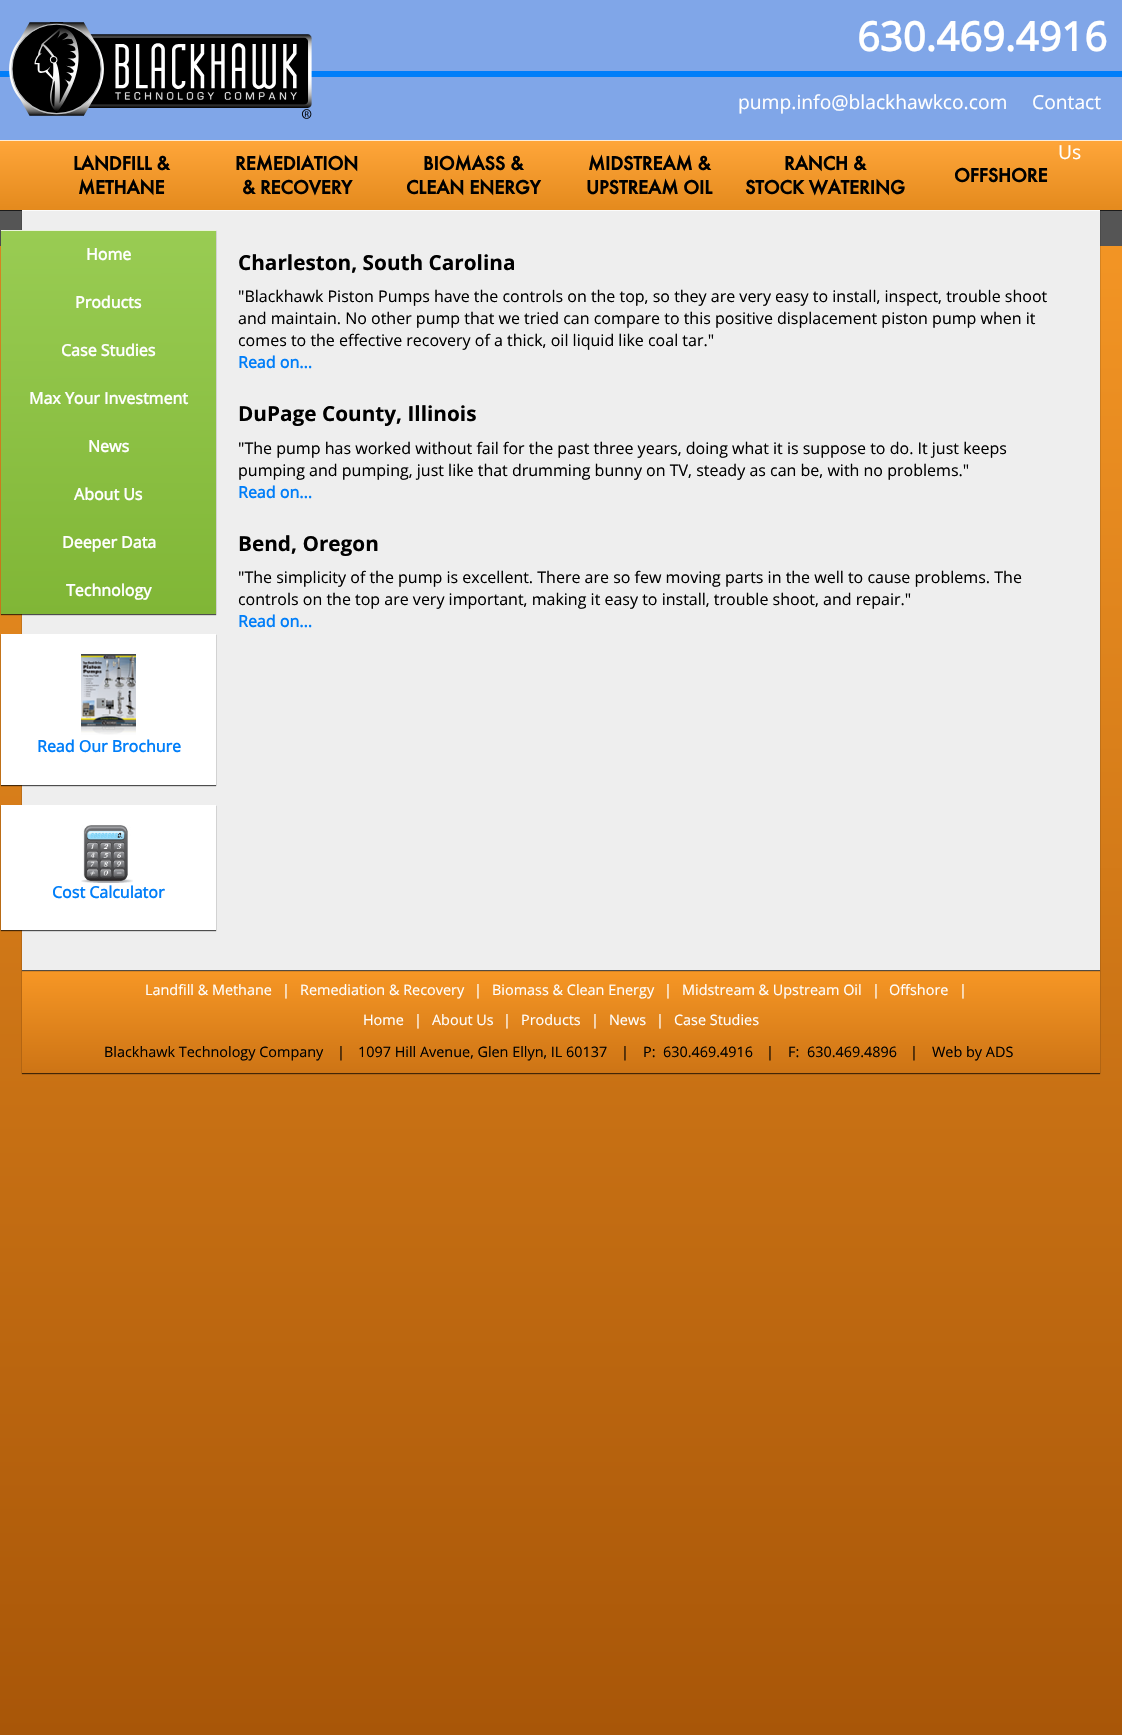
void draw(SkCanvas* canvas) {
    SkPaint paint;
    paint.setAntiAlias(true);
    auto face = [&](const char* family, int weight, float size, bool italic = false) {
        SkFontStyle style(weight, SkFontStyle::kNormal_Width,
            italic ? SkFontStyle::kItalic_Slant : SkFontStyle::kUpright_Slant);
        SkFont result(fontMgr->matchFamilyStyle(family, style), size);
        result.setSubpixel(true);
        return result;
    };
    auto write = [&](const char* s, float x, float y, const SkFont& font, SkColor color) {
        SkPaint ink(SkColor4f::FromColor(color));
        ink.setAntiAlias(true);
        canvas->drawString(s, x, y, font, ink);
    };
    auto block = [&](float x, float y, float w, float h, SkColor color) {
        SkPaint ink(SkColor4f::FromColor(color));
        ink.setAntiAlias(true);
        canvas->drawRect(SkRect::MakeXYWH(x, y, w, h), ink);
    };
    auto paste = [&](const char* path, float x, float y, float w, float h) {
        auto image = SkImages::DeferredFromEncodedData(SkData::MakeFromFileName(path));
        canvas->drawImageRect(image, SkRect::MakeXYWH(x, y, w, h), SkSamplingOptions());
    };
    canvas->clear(SK_ColorWHITE);
    {
        const SkColor colors[] = {SkColorSetRGB(255, 159, 41), SkColorSetRGB(168, 86, 8)};
        const float stops[] = {0, 1};
        const SkPoint ends[] = {{561, 0}, {561, 1735}};
        paint.setShader(SkGradientShader::MakeLinear(ends, colors, stops, 2, SkTileMode::kClamp));
        paint.setAlpha(255);
    }
    canvas->drawRect(SkRect::MakeXYWH(0, 246, 1122, 1489), paint);
    block(0, 0, 1122, 140, SkColorSetRGB(128, 166, 232));
    block(0, 211, 1122, 35, SkColorSetRGB(85, 85, 85));
    block(0, 71, 1122, 6, SkColorSetRGB(0, 126, 249));
    paste("pic1.png", 9, 22, 303, 97);
    auto kFont1 = face("Open Sans", 700, 40);
    write("630.469.4916", 857, 51, kFont1, SK_ColorWHITE);
    auto kFont2 = face("Open Sans", 400, 19.25f);
    write("pump.info@blackhawkco.com", 738, 109, kFont2, SK_ColorWHITE);
    write("Contact", 1032, 109, kFont2, SK_ColorWHITE);
    {
        const SkColor colors[] = {SkColorSetRGB(255, 166, 58), SkColorSetRGB(228, 138, 29)};
        const float stops[] = {0, 1};
        const SkPoint ends[] = {{561, 140}, {561, 210}};
        paint.setShader(SkGradientShader::MakeLinear(ends, colors, stops, 2, SkTileMode::kClamp));
        paint.setAlpha(255);
    }
    canvas->drawRect(SkRect::MakeXYWH(0, 141, 1122, 69), paint);
    write("Us", 1058, 159, kFont2, SK_ColorWHITE);
    block(0, 210, 1122, 1, SkColorSetRGB(27, 27, 27));
    block(0, 140, 1122, 1, SkColorSetRGB(255, 236, 214));
    auto kFont3 = face("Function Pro", 700, 20);
    write("LANDFILL &", 73, 170, kFont3, SK_ColorBLACK);
    write("METHANE", 78, 194, kFont3, SK_ColorBLACK);
    write("REMEDIATION", 235, 170, kFont3, SK_ColorBLACK);
    write("& RECOVERY", 242, 194, kFont3, SK_ColorBLACK);
    write("BIOMASS &", 423, 170, kFont3, SK_ColorBLACK);
    write("CLEAN ENERGY", 406, 194, kFont3, SK_ColorBLACK);
    write("MIDSTREAM &", 588, 170, kFont3, SK_ColorBLACK);
    write("UPSTREAM OIL", 586, 194, kFont3, SK_ColorBLACK);
    write("RANCH &", 784, 170, kFont3, SK_ColorBLACK);
    write("STOCK WATERING", 745, 194, kFont3, SK_ColorBLACK);
    write("OFFSHORE", 954, 182, kFont3, SK_ColorBLACK);
    paint.setShader(nullptr);
    paint.setColor(SkColorSetARGB(173, 0, 0, 0));
    paint.setMaskFilter(SkMaskFilter::MakeBlur(kNormal_SkBlurStyle, 0.5f));
    canvas->drawRect(SkRect::MakeXYWH(22, 971, 1078, 103), paint);
    paint.setMaskFilter(nullptr);
    {
        const SkColor colors[] = {SkColorSetRGB(247, 151, 37), SkColorSetRGB(205, 116, 21)};
        const float stops[] = {0, 1};
        const SkPoint ends[] = {{561, 970}, {561, 1073}};
        paint.setShader(SkGradientShader::MakeLinear(ends, colors, stops, 2, SkTileMode::kClamp));
        paint.setAlpha(255);
    }
    canvas->drawRect(SkRect::MakeXYWH(22, 971, 1078, 102), paint);
    block(22, 970, 1078, 1, SkColorSetRGB(253, 233, 209));
    paint.setShader(nullptr);
    paint.setColor(SkColorSetARGB(173, 0, 0, 0));
    paint.setMaskFilter(SkMaskFilter::MakeBlur(kNormal_SkBlurStyle, 0.5f));
    canvas->drawRect(SkRect::MakeXYWH(22, 211, 1078, 760), paint);
    paint.setMaskFilter(nullptr);
    block(22, 211, 1078, 759, SkColorSetRGB(238, 238, 238));
    block(22, 210, 1078, 1, SkColorSetRGB(251, 251, 251));
    paint.setMaskFilter(SkMaskFilter::MakeBlur(kNormal_SkBlurStyle, 0.5f));
    canvas->drawRect(SkRect::MakeXYWH(1, 231, 215, 384), paint);
    paint.setMaskFilter(nullptr);
    {
        const SkColor colors[] = {SkColorSetRGB(153, 204, 83), SkColorSetRGB(128, 182, 54)};
        const float stops[] = {0, 1};
        const SkPoint ends[] = {{108, 230}, {109, 614}};
        paint.setShader(SkGradientShader::MakeLinear(ends, colors, stops, 2, SkTileMode::kClamp));
        paint.setAlpha(255);
    }
    canvas->drawRect(SkRect::MakeXYWH(1, 231, 215, 383), paint);
    block(1, 230, 215, 1, SkColorSetRGB(234, 244, 219));
    auto kFont4 = face("Open Sans", 700, 16);
    write("Home", 86, 260, kFont4, SK_ColorWHITE);
    write("Products", 75, 308, kFont4, SK_ColorWHITE);
    write("Case Studies", 61, 356, kFont4, SK_ColorWHITE);
    write("Max Your Investment", 29, 404, kFont4, SK_ColorWHITE);
    write("News", 88, 452, kFont4, SK_ColorWHITE);
    write("About Us", 74, 500, kFont4, SK_ColorWHITE);
    write("Deeper Data", 62, 548, kFont4, SK_ColorWHITE);
    write("Technology", 66, 596, kFont4, SK_ColorWHITE);
    paint.setShader(nullptr);
    paint.setColor(SkColorSetARGB(173, 0, 0, 0));
    paint.setMaskFilter(SkMaskFilter::MakeBlur(kNormal_SkBlurStyle, 0.5f));
    canvas->drawRect(SkRect::MakeXYWH(1, 635, 215, 151), paint);
    paint.setMaskFilter(nullptr);
    block(1, 634, 215, 151, SK_ColorWHITE);
    paste("pic2.png", 81, 654, 55, 81);
    write("Read Our Brochure", 37, 752, kFont4, SkColorSetRGB(0, 126, 249));
    paint.setMaskFilter(SkMaskFilter::MakeBlur(kNormal_SkBlurStyle, 0.5f));
    canvas->drawRect(SkRect::MakeXYWH(1, 806, 215, 125), paint);
    paint.setMaskFilter(nullptr);
    block(1, 805, 215, 125, SK_ColorWHITE);
    paste("pic3.png", 81, 825, 52, 58);
    write("Cost Calculator", 52, 898, kFont4, SkColorSetRGB(0, 126, 249));
    auto kFont5 = face("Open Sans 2", 700, 20.75f);
    write("Charleston, South Carolina", 238, 270, kFont5, SK_ColorBLACK);
    auto kFont6 = face("Open Sans", 400, 16);
    write("\"Blackhawk Piston Pumps have the controls on the top, so they are very easy to install, inspect, trouble shoot", 238, 302, kFont6, SK_ColorBLACK);
    write("and maintain. No other pump that we tried can compare to this positive displacement piston pump when it", 238, 324, kFont6, SK_ColorBLACK);
    write("comes to the effective recovery of a thick, oil liquid like coal tar.\"", 238, 346, kFont6, SK_ColorBLACK);
    write("Read on...", 238, 368, kFont4, SkColorSetRGB(0, 126, 249));
    write("DuPage County, Illinois", 238, 421, kFont5, SK_ColorBLACK);
    write("\"The pump has worked without fail for the past three years, doing what it is suppose to do. It just keeps", 238, 454, kFont6, SK_ColorBLACK);
    write("pumping and pumping, just like that drumming bunny on TV, steady as can be, with no problems.\"", 238, 476, kFont6, SK_ColorBLACK);
    write("Read on...", 238, 498, kFont4, SkColorSetRGB(0, 126, 249));
    write("Bend, Oregon", 238, 551, kFont5, SK_ColorBLACK);
    write("\"The simplicity of the pump is excellent. There are so few moving parts in the well to cause problems. The", 238, 583, kFont6, SK_ColorBLACK);
    write("controls on the top are very important, making it easy to install, trouble shoot, and repair.\"", 238, 605, kFont6, SK_ColorBLACK);
    write("Read on...", 238, 627, kFont4, SkColorSetRGB(0, 126, 249));
    auto kFont7 = face("Open Sans", 400, 14.4f);
    write("Landfill & Methane", 145, 995, kFont7, SK_ColorWHITE);
    write("|", 282, 995, kFont7, SK_ColorWHITE);
    write("Remediation & Recovery", 300, 995, kFont7, SK_ColorWHITE);
    write("|", 474, 995, kFont7, SK_ColorWHITE);
    write("Biomass & Clean Energy", 492, 995, kFont7, SK_ColorWHITE);
    write("|", 664, 995, kFont7, SK_ColorWHITE);
    write("Midstream & Upstream Oil", 682, 995, kFont7, SK_ColorWHITE);
    write("|", 872, 995, kFont7, SK_ColorWHITE);
    write("Offshore", 889, 995, kFont7, SK_ColorWHITE);
    write("|", 959, 995, kFont7, SK_ColorWHITE);
    write("Home", 363, 1025, kFont7, SK_ColorWHITE);
    write("|", 414, 1025, kFont7, SK_ColorWHITE);
    write("About Us", 432, 1025, kFont7, SK_ColorWHITE);
    write("|", 503, 1025, kFont7, SK_ColorWHITE);
    write("Products", 521, 1025, kFont7, SK_ColorWHITE);
    write("|", 591, 1025, kFont7, SK_ColorWHITE);
    write("News", 609, 1025, kFont7, SK_ColorWHITE);
    write("|", 656, 1025, kFont7, SK_ColorWHITE);
    write("Case Studies", 674, 1025, kFont7, SK_ColorWHITE);
    write("Blackhawk Technology Company", 104, 1057, kFont7, SK_ColorBLACK);
    write("|", 337, 1057, kFont7, SK_ColorBLACK);
    write("1097 Hill Avenue, Glen Ellyn, IL 60137", 358, 1057, kFont7, SK_ColorBLACK);
    write("|", 621, 1057, kFont7, SK_ColorBLACK);
    write("P:", 643, 1057, kFont7, SK_ColorBLACK);
    write("630.469.4916", 663, 1057, kFont7, SK_ColorBLACK);
    write("|", 766, 1057, kFont7, SK_ColorBLACK);
    write("F:", 788, 1057, kFont7, SK_ColorBLACK);
    write("630.469.4896", 807, 1057, kFont7, SK_ColorBLACK);
    write("|", 910, 1057, kFont7, SK_ColorBLACK);
    write("Web by ADS", 932, 1057, kFont7, SK_ColorBLACK);
}
